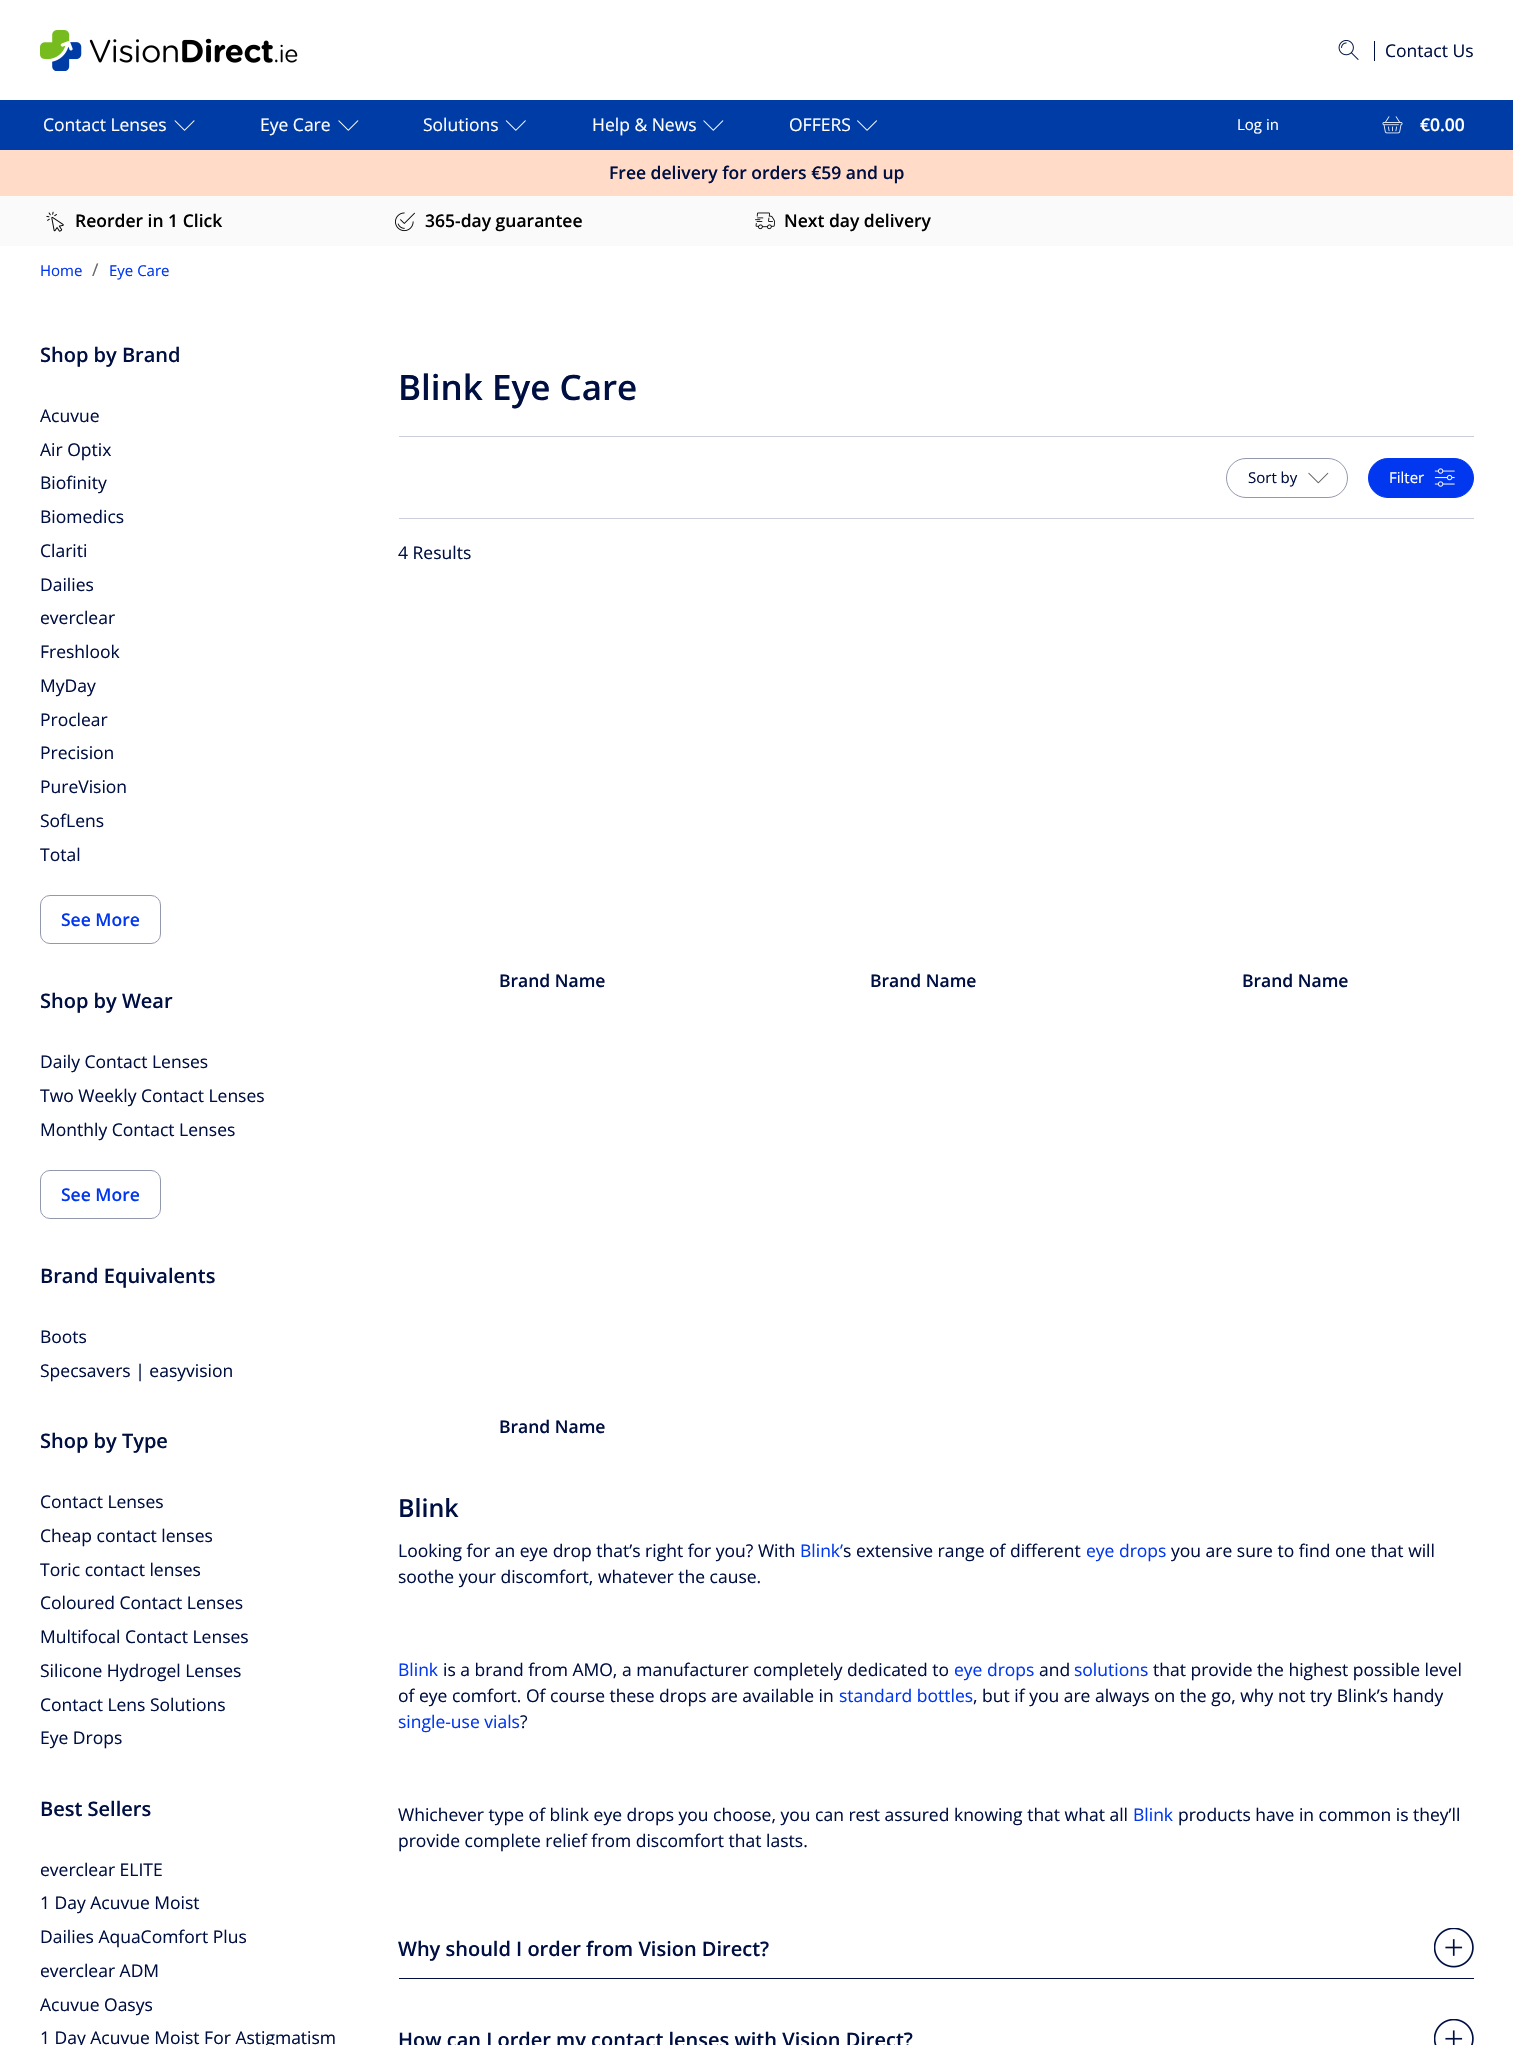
void draw(SkCanvas* canvas) {
    SkPaint paint;
    paint.setAntiAlias(true);
    auto face = [&](const char* family, int weight, float size, bool italic = false) {
        SkFontStyle style(weight, SkFontStyle::kNormal_Width,
            italic ? SkFontStyle::kItalic_Slant : SkFontStyle::kUpright_Slant);
        SkFont result(fontMgr->matchFamilyStyle(family, style), size);
        result.setSubpixel(true);
        return result;
    };
    auto write = [&](const char* s, float x, float y, const SkFont& font, SkColor color) {
        SkPaint ink(SkColor4f::FromColor(color));
        ink.setAntiAlias(true);
        canvas->drawString(s, x, y, font, ink);
    };
    auto block = [&](float x, float y, float w, float h, SkColor color) {
        SkPaint ink(SkColor4f::FromColor(color));
        ink.setAntiAlias(true);
        canvas->drawRect(SkRect::MakeXYWH(x, y, w, h), ink);
    };
    auto paste = [&](const char* path, float x, float y, float w, float h) {
        auto image = SkImages::DeferredFromEncodedData(SkData::MakeFromFileName(path));
        canvas->drawImageRect(image, SkRect::MakeXYWH(x, y, w, h), SkSamplingOptions());
    };
    canvas->clear(SK_ColorWHITE);
    paste("pic1.png", 40, 30, 258, 41);
    paste("pic2.png", 1338, 40, 21, 20);
    block(1374, 41, 1, 20, SkColorSetRGB(0, 15, 66));
    auto kFont1 = face("Open Sans", 400, 17.5f);
    write("Contact Us", 1385, 57, kFont1, SkColorSetRGB(0, 15, 66));
    block(0, 100, 1513, 50, SkColorSetRGB(0, 60, 166));
    write("Contact Lenses", 43, 131, kFont1, SK_ColorWHITE);
    paste("pic3.png", 174, 120, 21, 11);
    write("Eye Care", 260, 131, kFont1, SK_ColorWHITE);
    paste("pic4.png", 338, 120, 21, 11);
    write("Solutions", 423, 131, kFont1, SK_ColorWHITE);
    paste("pic5.png", 505, 120, 21, 11);
    write("Help & News", 592, 131, kFont1, SK_ColorWHITE);
    paste("pic4.png", 703, 120, 21, 11);
    write("OFFERS", 789, 131, kFont1, SK_ColorWHITE);
    paste("pic6.png", 857, 120, 20, 11);
    auto kFont2 = face("Open Sans", 400, 15);
    write("Log in", 1237, 130, kFont2, SK_ColorWHITE);
    paste("pic7.png", 1382, 116, 21, 18);
    auto kFont3 = face("Open Sans", 600, 17.5f);
    write("€0.00", 1420, 131, kFont3, SK_ColorWHITE);
    block(0, 150, 1513, 46, SkColorSetRGB(255, 219, 200));
    write("Free delivery for orders €59 and up", 609, 179, kFont3, SkColorSetRGB(0, 15, 66));
    block(0, 196, 1513, 50, SkColorSetRGB(250, 250, 251));
    paste("pic8.png", 46, 211, 18, 21);
    write("Reorder in 1 Click", 75, 227, kFont3, SK_ColorBLACK);
    paste("pic9.png", 395, 212, 20, 20);
    write("365-day guarantee", 425, 227, kFont3, SK_ColorBLACK);
    paste("pic10.png", 755, 212, 20, 18);
    write("Next day delivery", 784, 227, kFont3, SK_ColorBLACK);
    write("Home", 40, 276, kFont2, SkColorSetRGB(1, 55, 239));
    write("/", 92, 276, kFont1, SkColorSetRGB(102, 102, 102));
    write("Eye Care", 109, 276, kFont2, SkColorSetRGB(1, 55, 239));
    auto kFont4 = face("Open Sans", 600, 20);
    write("Shop by Brand", 40, 362, kFont4, SkColorSetRGB(0, 15, 66));
    write("Acuvue", 40, 422, kFont1, SkColorSetRGB(0, 15, 66));
    write("Air Optix", 40, 456, kFont1, SkColorSetRGB(0, 15, 66));
    write("Biofinity", 40, 489, kFont1, SkColorSetRGB(0, 15, 66));
    write("Biomedics", 40, 523, kFont1, SkColorSetRGB(0, 15, 66));
    write("Clariti", 40, 557, kFont1, SkColorSetRGB(0, 15, 66));
    write("Dailies", 40, 591, kFont1, SkColorSetRGB(0, 15, 66));
    write("everclear", 40, 624, kFont1, SkColorSetRGB(0, 15, 66));
    write("Freshlook", 40, 658, kFont1, SkColorSetRGB(0, 15, 66));
    write("MyDay", 40, 692, kFont1, SkColorSetRGB(0, 15, 66));
    write("Proclear", 40, 726, kFont1, SkColorSetRGB(0, 15, 66));
    write("Precision", 40, 759, kFont1, SkColorSetRGB(0, 15, 66));
    write("PureVision", 40, 793, kFont1, SkColorSetRGB(0, 15, 66));
    write("SofLens", 40, 827, kFont1, SkColorSetRGB(0, 15, 66));
    write("Total", 40, 861, kFont1, SkColorSetRGB(0, 15, 66));
    paint.setStyle(SkPaint::kStroke_Style);
    paint.setStrokeWidth(1);
    paint.setColor(SkColorSetRGB(147, 153, 173));
    canvas->drawRoundRect(SkRect::MakeXYWH(40.5f, 895.5f, 120, 48), 9.5f, 9.5f, paint);
    write("See More", 61, 926, kFont3, SkColorSetRGB(1, 55, 239));
    write("Shop by Wear", 40, 1008, kFont4, SkColorSetRGB(0, 15, 66));
    write("Daily Contact Lenses", 40, 1068, kFont1, SkColorSetRGB(0, 15, 66));
    write("Two Weekly Contact Lenses", 40, 1102, kFont1, SkColorSetRGB(0, 15, 66));
    write("Monthly Contact Lenses", 40, 1136, kFont1, SkColorSetRGB(0, 15, 66));
    canvas->drawRoundRect(SkRect::MakeXYWH(40.5f, 1170.5f, 120, 48), 9.5f, 9.5f, paint);
    write("See More", 61, 1201, kFont3, SkColorSetRGB(1, 55, 239));
    write("Brand Equivalents", 40, 1283, kFont4, SkColorSetRGB(0, 15, 66));
    write("Boots", 40, 1343, kFont1, SkColorSetRGB(0, 15, 66));
    write("Specsavers | easyvision", 40, 1377, kFont1, SkColorSetRGB(0, 15, 66));
    write("Shop by Type", 40, 1448, kFont4, SkColorSetRGB(0, 15, 66));
    write("Contact Lenses", 40, 1508, kFont1, SkColorSetRGB(0, 15, 66));
    write("Cheap contact lenses", 40, 1542, kFont1, SkColorSetRGB(0, 15, 66));
    write("Toric contact lenses", 40, 1576, kFont1, SkColorSetRGB(0, 15, 66));
    write("Coloured Contact Lenses", 40, 1609, kFont1, SkColorSetRGB(0, 15, 66));
    write("Multifocal Contact Lenses", 40, 1643, kFont1, SkColorSetRGB(0, 15, 66));
    write("Silicone Hydrogel Lenses", 40, 1677, kFont1, SkColorSetRGB(0, 15, 66));
    write("Contact Lens Solutions", 40, 1711, kFont1, SkColorSetRGB(0, 15, 66));
    write("Eye Drops", 40, 1744, kFont1, SkColorSetRGB(0, 15, 66));
    write("Best Sellers", 40, 1816, kFont4, SkColorSetRGB(0, 15, 66));
    write("everclear ELITE", 40, 1876, kFont1, SkColorSetRGB(0, 15, 66));
    write("1 Day Acuvue Moist", 40, 1909, kFont1, SkColorSetRGB(0, 15, 66));
    write("Dailies AquaComfort Plus", 40, 1943, kFont1, SkColorSetRGB(0, 15, 66));
    write("everclear ADM", 40, 1977, kFont1, SkColorSetRGB(0, 15, 66));
    write("Acuvue Oasys", 40, 2011, kFont1, SkColorSetRGB(0, 15, 66));
    write("1 Day Acuvue Moist For Astigmatism", 40, 2044, kFont1, SkColorSetRGB(0, 15, 66));
    auto kFont5 = face("Open Sans", 600, 35);
    write("Blink Eye Care", 398, 400, kFont5, SkColorSetRGB(0, 15, 66));
    block(399, 436, 1075, 1, SkColorSetRGB(204, 207, 217));
    canvas->drawRoundRect(SkRect::MakeXYWH(1226.5f, 458.5f, 121, 39), 19.5f, 19.5f, paint);
    write("Sort by", 1248, 483, kFont2, SkColorSetRGB(0, 15, 66));
    paste("pic11.png", 1308, 472, 21, 12);
    paint.setStyle(SkPaint::kFill_Style);
    paint.setColor(SkColorSetRGB(1, 55, 239));
    canvas->drawRoundRect(SkRect::MakeXYWH(1368.5f, 458.5f, 105, 39), 19.5f, 19.5f, paint);
    paint.setStyle(SkPaint::kStroke_Style);
    canvas->drawRoundRect(SkRect::MakeXYWH(1368.5f, 458.5f, 105, 39), 19.5f, 19.5f, paint);
    write("Filter", 1389, 483, kFont2, SK_ColorWHITE);
    paste("pic12.png", 1434, 468, 21, 19);
    block(399, 518, 1075, 1, SkColorSetRGB(204, 207, 217));
    write("4 Results", 398, 559, kFont1, SkColorSetRGB(0, 15, 66));
    write("Brand Name", 499, 987, kFont3, SkColorSetRGB(0, 15, 66));
    write("Brand Name", 870, 987, kFont3, SkColorSetRGB(0, 15, 66));
    write("Brand Name", 1242, 987, kFont3, SkColorSetRGB(0, 15, 66));
    write("Brand Name", 499, 1433, kFont3, SkColorSetRGB(0, 15, 66));
    auto kFont6 = face("Open Sans", 600, 25);
    write("Blink", 398, 1517, kFont6, SkColorSetRGB(0, 15, 66));
    write("Looking for an eye drop that’s right for you? With", 398, 1557, kFont1, SkColorSetRGB(0, 15, 66));
    write("Blink’", 800, 1557, kFont1, SkColorSetRGB(1, 55, 239));
    write("s extensive range of different", 843, 1557, kFont1, SkColorSetRGB(0, 15, 66));
    write("eye drops", 1086, 1557, kFont1, SkColorSetRGB(1, 55, 239));
    write("you are sure to find one that will", 1171, 1557, kFont1, SkColorSetRGB(0, 15, 66));
    write("soothe your discomfort, whatever the cause.", 398, 1583, kFont1, SkColorSetRGB(0, 15, 66));
    write("Blink", 398, 1676, kFont1, SkColorSetRGB(1, 55, 239));
    write("is a brand from AMO, a manufacturer completely dedicated to", 443, 1676, kFont1, SkColorSetRGB(0, 15, 66));
    write("eye drops", 954, 1676, kFont1, SkColorSetRGB(1, 55, 239));
    write("and", 1039, 1676, kFont1, SkColorSetRGB(0, 15, 66));
    write("solutions", 1074, 1676, kFont1, SkColorSetRGB(1, 55, 239));
    write("that provide the highest possible level", 1153, 1676, kFont1, SkColorSetRGB(0, 15, 66));
    write("of eye comfort. Of course these drops are available in", 398, 1702, kFont1, SkColorSetRGB(0, 15, 66));
    write("standard bottles", 839, 1702, kFont1, SkColorSetRGB(1, 55, 239));
    write(", but if you are always on the go, why not try Blink’s handy", 973, 1702, kFont1, SkColorSetRGB(0, 15, 66));
    write("single-use vials", 398, 1728, kFont1, SkColorSetRGB(1, 55, 239));
    write("?", 520, 1728, kFont1, SkColorSetRGB(0, 15, 66));
    write("Whichever type of blink eye drops you choose, you can rest assured knowing that what all", 398, 1821, kFont1, SkColorSetRGB(0, 15, 66));
    write("Blink", 1133, 1821, kFont1, SkColorSetRGB(1, 55, 239));
    write("products have in common is they’ll", 1178, 1821, kFont1, SkColorSetRGB(0, 15, 66));
    write("provide complete relief from discomfort that lasts.", 398, 1847, kFont1, SkColorSetRGB(0, 15, 66));
    block(399, 1978, 1075, 1, SkColorSetRGB(0, 15, 66));
    write("Why should I order from Vision Direct?", 398, 1956, kFont4, SkColorSetRGB(0, 15, 66));
    paste("pic13.png", 1434, 1928, 40, 40);
    write("How can I order my contact lenses with Vision Direct?", 398, 2047, kFont4, SkColorSetRGB(0, 15, 66));
    paste("pic14.png", 1434, 2019, 40, 26);
}
